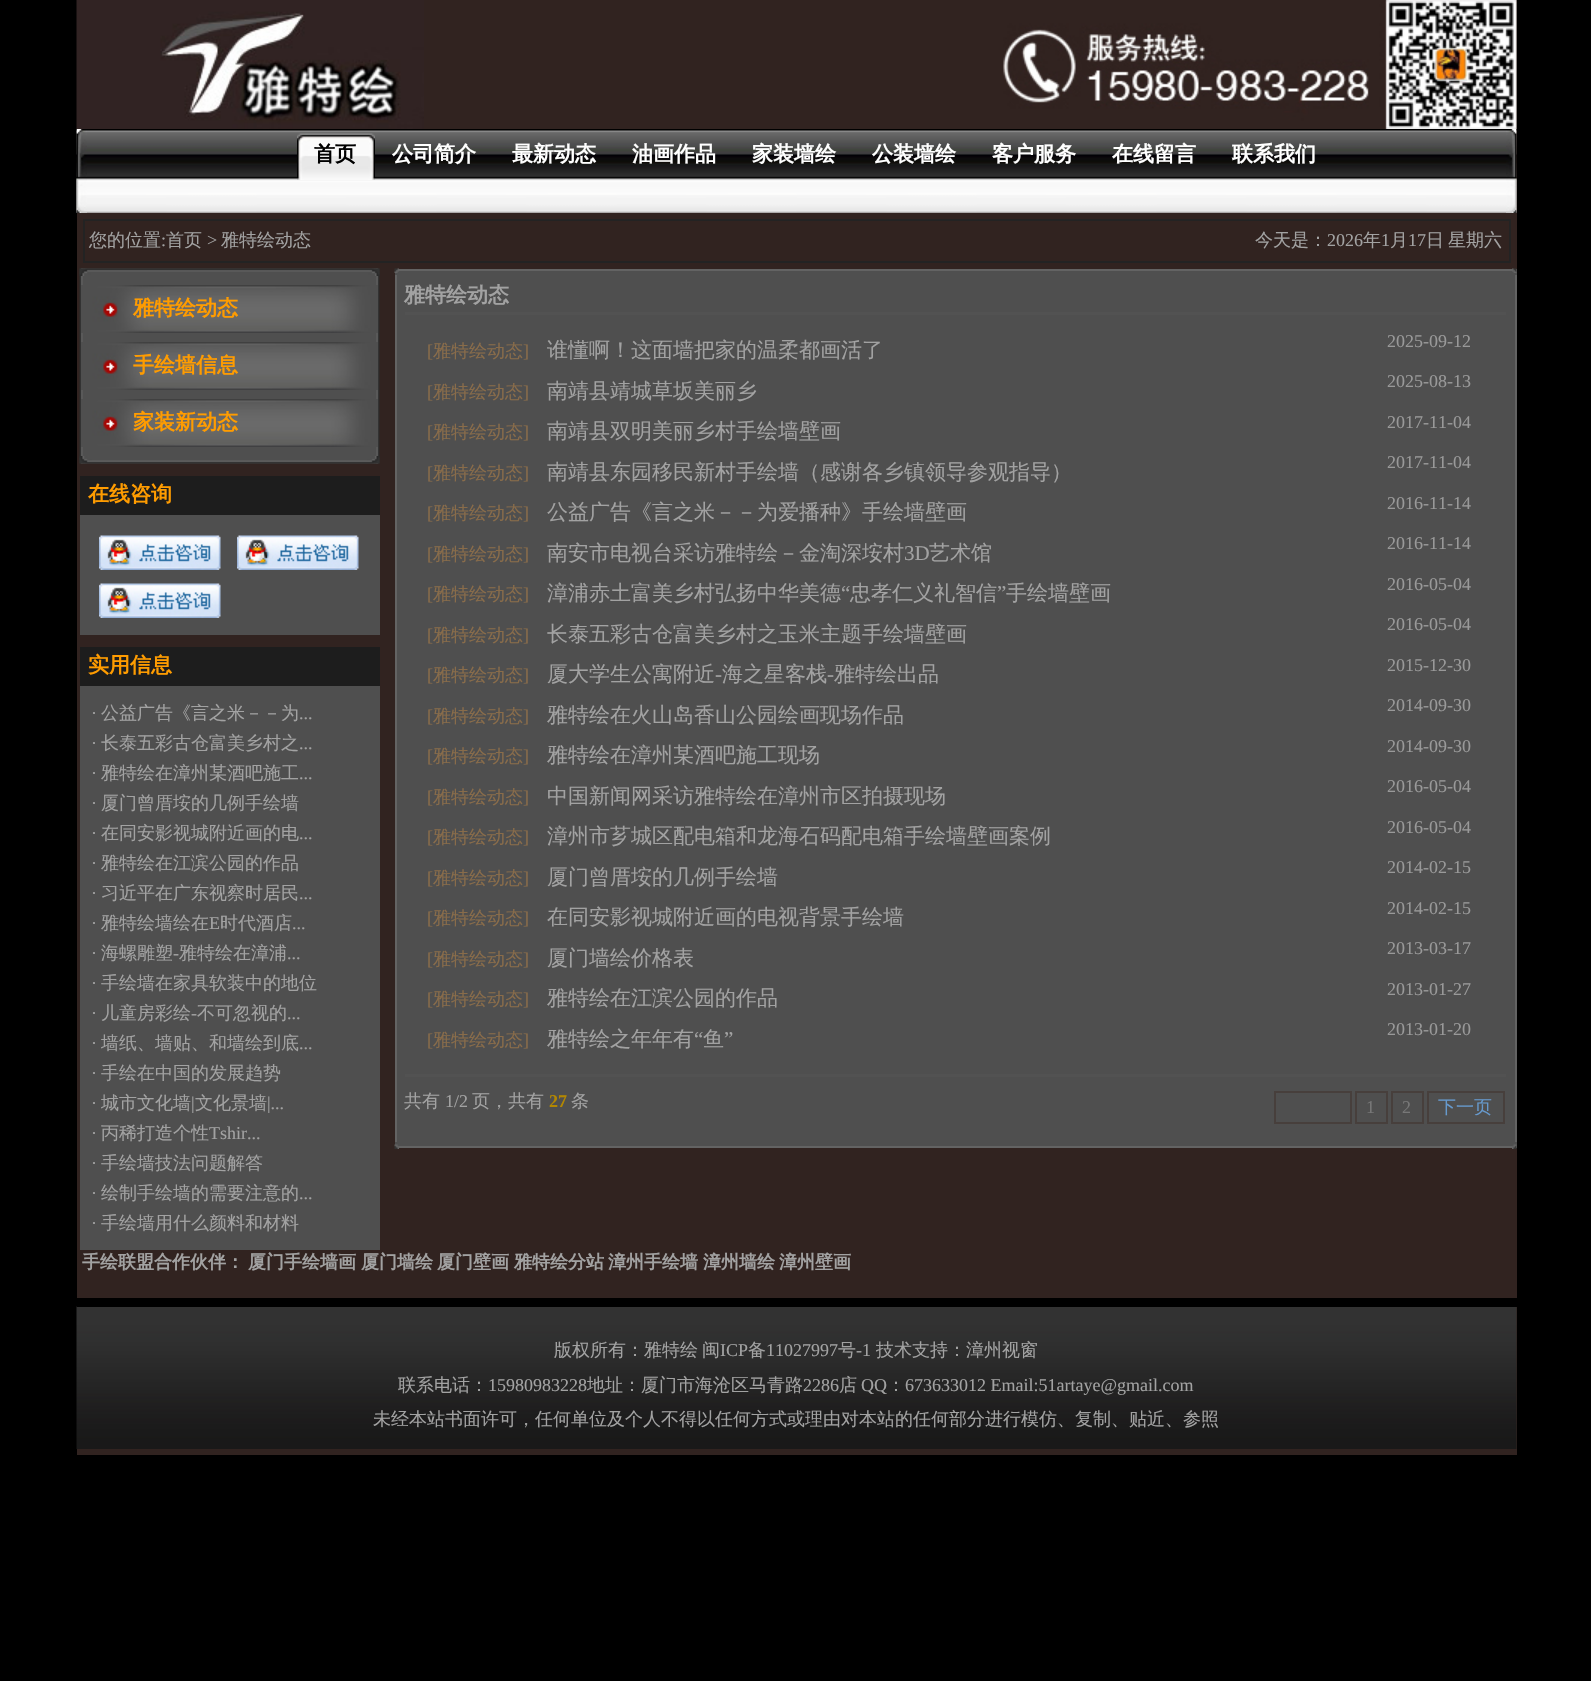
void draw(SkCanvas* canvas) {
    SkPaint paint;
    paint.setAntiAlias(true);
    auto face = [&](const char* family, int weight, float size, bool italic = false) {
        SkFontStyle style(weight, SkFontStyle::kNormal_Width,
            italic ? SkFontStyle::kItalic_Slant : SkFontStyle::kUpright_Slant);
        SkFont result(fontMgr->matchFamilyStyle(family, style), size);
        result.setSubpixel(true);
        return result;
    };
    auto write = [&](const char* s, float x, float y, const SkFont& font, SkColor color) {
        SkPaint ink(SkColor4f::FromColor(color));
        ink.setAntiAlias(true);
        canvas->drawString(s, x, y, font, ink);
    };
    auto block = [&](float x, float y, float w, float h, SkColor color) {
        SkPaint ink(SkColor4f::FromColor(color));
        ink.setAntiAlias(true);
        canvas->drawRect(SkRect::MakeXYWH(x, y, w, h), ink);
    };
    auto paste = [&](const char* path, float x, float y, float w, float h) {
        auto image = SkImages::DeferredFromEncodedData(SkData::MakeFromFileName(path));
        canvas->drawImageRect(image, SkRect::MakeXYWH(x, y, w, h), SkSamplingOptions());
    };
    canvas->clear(SK_ColorBLACK);
    block(77, 0, 1440, 1455, SkColorSetRGB(49, 35, 32));
    paste("pic1.png", 76, 0, 348, 129);
    paste("pic2.png", 1003, 0, 514, 129);
    paste("pic3.png", 76, 129, 1441, 84);
    paste("pic4.png", 76, 129, 11, 84);
    paste("pic5.png", 297, 133, 71, 47);
    paste("pic6.png", 368, 133, 7, 47);
    auto kFont1 = face("WenQuanYi Zen Hei", 700, 21);
    write("首页", 314, 161, kFont1, SK_ColorBLACK);
    write("公司简介", 392, 161, kFont1, SK_ColorWHITE);
    write("最新动态", 512, 161, kFont1, SK_ColorWHITE);
    write("油画作品", 632, 161, kFont1, SK_ColorWHITE);
    write("家装墙绘", 752, 161, kFont1, SK_ColorWHITE);
    write("公装墙绘", 872, 161, kFont1, SK_ColorWHITE);
    write("客户服务", 992, 161, kFont1, SK_ColorWHITE);
    write("在线留言", 1112, 161, kFont1, SK_ColorWHITE);
    write("联系我们", 1232, 161, kFont1, SK_ColorWHITE);
    paste("pic7.png", 1506, 129, 11, 84);
    paint.setStyle(SkPaint::kStroke_Style);
    paint.setStrokeWidth(2);
    paint.setColor(SkColorSetRGB(35, 35, 35));
    canvas->drawRect(SkRect::MakeXYWH(84, 220, 1426, 42), paint);
    auto kFont2 = face("WenQuanYi Zen Hei", 500, 18);
    write("您的位置", 89, 246, kFont2, SkColorSetRGB(162, 162, 162));
    auto kFont3 = face("Liberation Serif", 400, 18);
    write(":", 161, 246, kFont3, SkColorSetRGB(162, 162, 162));
    write("首页", 166, 246, kFont2, SkColorSetRGB(162, 162, 162));
    write(">", 207, 246, kFont3, SkColorSetRGB(162, 162, 162));
    write("雅特绘动态", 221, 246, kFont2, SkColorSetRGB(162, 162, 162));
    write("今天是：", 1255, 246, kFont2, SkColorSetRGB(162, 162, 162));
    write("2026", 1327, 246, kFont3, SkColorSetRGB(162, 162, 162));
    write("年", 1363, 246, kFont2, SkColorSetRGB(162, 162, 162));
    write("1", 1381, 246, kFont3, SkColorSetRGB(162, 162, 162));
    write("月", 1390, 246, kFont2, SkColorSetRGB(162, 162, 162));
    write("17", 1408, 246, kFont3, SkColorSetRGB(162, 162, 162));
    write("日", 1426, 246, kFont2, SkColorSetRGB(162, 162, 162));
    write("星期六", 1448, 246, kFont2, SkColorSetRGB(162, 162, 162));
    paste("pic8.png", 79, 268, 301, 196);
    paste("pic9.png", 79, 268, 301, 8);
    paste("pic10.png", 81, 285, 297, 48);
    write("雅特绘动态", 133, 315, kFont1, SkColorSetRGB(255, 156, 0));
    paste("pic10.png", 81, 342, 297, 48);
    write("手绘墙信息", 133, 372, kFont1, SkColorSetRGB(255, 156, 0));
    paste("pic10.png", 81, 399, 297, 48);
    write("家装新动态", 133, 429, kFont1, SkColorSetRGB(255, 156, 0));
    paste("pic11.png", 79, 456, 301, 8);
    block(80, 476, 300, 39, SkColorSetRGB(29, 29, 29));
    write("在线咨询", 88, 501, kFont1, SkColorSetRGB(255, 156, 0));
    block(80, 515, 300, 120, SkColorSetRGB(79, 79, 79));
    paste("pic12.png", 99, 535, 122, 35);
    paste("pic12.png", 237, 535, 122, 35);
    paste("pic12.png", 99, 583, 122, 35);
    block(80, 647, 300, 39, SkColorSetRGB(29, 29, 29));
    write("实用信息", 88, 672, kFont1, SkColorSetRGB(255, 156, 0));
    block(80, 686, 300, 564, SkColorSetRGB(79, 79, 79));
    write("·", 91, 719, kFont3, SkColorSetRGB(162, 162, 162));
    write("公益广告《言之米－－为", 101, 719, kFont2, SkColorSetRGB(162, 162, 162));
    write("...", 299, 719, kFont3, SkColorSetRGB(162, 162, 162));
    write("·", 91, 749, kFont3, SkColorSetRGB(162, 162, 162));
    write("长泰五彩古仓富美乡村之", 101, 749, kFont2, SkColorSetRGB(162, 162, 162));
    write("...", 299, 749, kFont3, SkColorSetRGB(162, 162, 162));
    write("·", 91, 779, kFont3, SkColorSetRGB(162, 162, 162));
    write("雅特绘在漳州某酒吧施工", 101, 779, kFont2, SkColorSetRGB(162, 162, 162));
    write("...", 299, 779, kFont3, SkColorSetRGB(162, 162, 162));
    write("·", 91, 809, kFont3, SkColorSetRGB(162, 162, 162));
    write("厦门曾厝垵的几例手绘墙", 101, 809, kFont2, SkColorSetRGB(162, 162, 162));
    write("·", 91, 839, kFont3, SkColorSetRGB(162, 162, 162));
    write("在同安影视城附近画的电", 101, 839, kFont2, SkColorSetRGB(162, 162, 162));
    write("...", 299, 839, kFont3, SkColorSetRGB(162, 162, 162));
    write("·", 91, 869, kFont3, SkColorSetRGB(162, 162, 162));
    write("雅特绘在江滨公园的作品", 101, 869, kFont2, SkColorSetRGB(162, 162, 162));
    write("·", 91, 899, kFont3, SkColorSetRGB(162, 162, 162));
    write("习近平在广东视察时居民", 101, 899, kFont2, SkColorSetRGB(162, 162, 162));
    write("...", 299, 899, kFont3, SkColorSetRGB(162, 162, 162));
    write("·", 91, 929, kFont3, SkColorSetRGB(162, 162, 162));
    write("雅特绘墙绘在", 101, 929, kFont2, SkColorSetRGB(162, 162, 162));
    write("E", 209, 929, kFont3, SkColorSetRGB(162, 162, 162));
    write("时代酒店", 220, 929, kFont2, SkColorSetRGB(162, 162, 162));
    write("...", 292, 929, kFont3, SkColorSetRGB(162, 162, 162));
    write("·", 91, 959, kFont3, SkColorSetRGB(162, 162, 162));
    write("海螺雕塑", 101, 959, kFont2, SkColorSetRGB(162, 162, 162));
    write("-", 173, 959, kFont3, SkColorSetRGB(162, 162, 162));
    write("雅特绘在漳浦", 179, 959, kFont2, SkColorSetRGB(162, 162, 162));
    write("...", 287, 959, kFont3, SkColorSetRGB(162, 162, 162));
    write("·", 91, 989, kFont3, SkColorSetRGB(162, 162, 162));
    write("手绘墙在家具软装中的地位", 101, 989, kFont2, SkColorSetRGB(162, 162, 162));
    write("·", 91, 1019, kFont3, SkColorSetRGB(162, 162, 162));
    write("儿童房彩绘", 101, 1019, kFont2, SkColorSetRGB(162, 162, 162));
    write("-", 191, 1019, kFont3, SkColorSetRGB(162, 162, 162));
    write("不可忽视的", 197, 1019, kFont2, SkColorSetRGB(162, 162, 162));
    write("...", 287, 1019, kFont3, SkColorSetRGB(162, 162, 162));
    write("·", 91, 1049, kFont3, SkColorSetRGB(162, 162, 162));
    write("墙纸、墙贴、和墙绘到底", 101, 1049, kFont2, SkColorSetRGB(162, 162, 162));
    write("...", 299, 1049, kFont3, SkColorSetRGB(162, 162, 162));
    write("·", 91, 1079, kFont3, SkColorSetRGB(162, 162, 162));
    write("手绘在中国的发展趋势", 101, 1079, kFont2, SkColorSetRGB(162, 162, 162));
    write("·", 91, 1109, kFont3, SkColorSetRGB(162, 162, 162));
    write("城市文化墙", 101, 1109, kFont2, SkColorSetRGB(162, 162, 162));
    write("|", 191, 1109, kFont3, SkColorSetRGB(162, 162, 162));
    write("文化景墙", 195, 1109, kFont2, SkColorSetRGB(162, 162, 162));
    write("|...", 267, 1109, kFont3, SkColorSetRGB(162, 162, 162));
    write("·", 91, 1139, kFont3, SkColorSetRGB(162, 162, 162));
    write("丙稀打造个性", 101, 1139, kFont2, SkColorSetRGB(162, 162, 162));
    write("Tshir...", 209, 1139, kFont3, SkColorSetRGB(162, 162, 162));
    write("·", 91, 1169, kFont3, SkColorSetRGB(162, 162, 162));
    write("手绘墙技法问题解答", 101, 1169, kFont2, SkColorSetRGB(162, 162, 162));
    write("·", 91, 1199, kFont3, SkColorSetRGB(162, 162, 162));
    write("绘制手绘墙的需要注意的", 101, 1199, kFont2, SkColorSetRGB(162, 162, 162));
    write("...", 299, 1199, kFont3, SkColorSetRGB(162, 162, 162));
    write("·", 91, 1229, kFont3, SkColorSetRGB(162, 162, 162));
    write("手绘墙用什么颜料和材料", 101, 1229, kFont2, SkColorSetRGB(162, 162, 162));
    block(395, 271, 1122, 4, SkColorSetRGB(79, 79, 79));
    block(395, 269, 1122, 2, SkColorSetRGB(99, 99, 99));
    paste("pic13.png", 394, 268, 5, 5);
    paste("pic14.png", 1512, 268, 5, 5);
    block(397, 275, 1118, 867, SkColorSetRGB(79, 79, 79));
    block(1515, 275, 2, 867, SkColorSetRGB(99, 99, 99));
    block(395, 275, 2, 867, SkColorSetRGB(99, 99, 99));
    block(405, 312, 1101, 3, SkColorSetRGB(82, 82, 82));
    write("雅特绘动态", 404, 302, kFont1, SkColorSetRGB(162, 162, 162));
    write("[", 427, 357, kFont3, SkColorSetRGB(137, 108, 74));
    write("雅特绘动态", 433, 357, kFont2, SkColorSetRGB(137, 108, 74));
    write("]", 523, 357, kFont3, SkColorSetRGB(137, 108, 74));
    auto kFont4 = face("WenQuanYi Zen Hei", 500, 21);
    write("谁懂啊！这面墙把家的温柔都画活了", 547, 357, kFont4, SkColorSetRGB(162, 162, 162));
    write("2025-09-12", 1387, 347, kFont3, SkColorSetRGB(153, 153, 153));
    write("[", 427, 398, kFont3, SkColorSetRGB(137, 108, 74));
    write("雅特绘动态", 433, 398, kFont2, SkColorSetRGB(137, 108, 74));
    write("]", 523, 398, kFont3, SkColorSetRGB(137, 108, 74));
    write("南靖县靖城草坂美丽乡", 547, 398, kFont4, SkColorSetRGB(162, 162, 162));
    write("2025-08-13", 1387, 387, kFont3, SkColorSetRGB(153, 153, 153));
    write("[", 427, 438, kFont3, SkColorSetRGB(137, 108, 74));
    write("雅特绘动态", 433, 438, kFont2, SkColorSetRGB(137, 108, 74));
    write("]", 523, 438, kFont3, SkColorSetRGB(137, 108, 74));
    write("南靖县双明美丽乡村手绘墙壁画", 547, 438, kFont4, SkColorSetRGB(162, 162, 162));
    write("2017-11-04", 1387, 428, kFont3, SkColorSetRGB(153, 153, 153));
    write("[", 427, 479, kFont3, SkColorSetRGB(137, 108, 74));
    write("雅特绘动态", 433, 479, kFont2, SkColorSetRGB(137, 108, 74));
    write("]", 523, 479, kFont3, SkColorSetRGB(137, 108, 74));
    write("南靖县东园移民新村手绘墙（感谢各乡镇领导参观指导）", 547, 479, kFont4, SkColorSetRGB(162, 162, 162));
    write("2017-11-04", 1387, 468, kFont3, SkColorSetRGB(153, 153, 153));
    write("[", 427, 519, kFont3, SkColorSetRGB(137, 108, 74));
    write("雅特绘动态", 433, 519, kFont2, SkColorSetRGB(137, 108, 74));
    write("]", 523, 519, kFont3, SkColorSetRGB(137, 108, 74));
    write("公益广告《言之米－－为爱播种》手绘墙壁画", 547, 519, kFont4, SkColorSetRGB(162, 162, 162));
    write("2016-11-14", 1387, 509, kFont3, SkColorSetRGB(153, 153, 153));
    write("[", 427, 560, kFont3, SkColorSetRGB(137, 108, 74));
    write("雅特绘动态", 433, 560, kFont2, SkColorSetRGB(137, 108, 74));
    write("]", 523, 560, kFont3, SkColorSetRGB(137, 108, 74));
    write("南安市电视台采访雅特绘－金淘深垵村", 547, 560, kFont4, SkColorSetRGB(162, 162, 162));
    auto kFont5 = face("Liberation Serif", 400, 21);
    write("3D", 904, 560, kFont5, SkColorSetRGB(162, 162, 162));
    write("艺术馆", 929, 560, kFont4, SkColorSetRGB(162, 162, 162));
    write("2016-11-14", 1387, 549, kFont3, SkColorSetRGB(153, 153, 153));
    write("[", 427, 600, kFont3, SkColorSetRGB(137, 108, 74));
    write("雅特绘动态", 433, 600, kFont2, SkColorSetRGB(137, 108, 74));
    write("]", 523, 600, kFont3, SkColorSetRGB(137, 108, 74));
    write("漳浦赤土富美乡村弘扬中华美德", 547, 600, kFont4, SkColorSetRGB(162, 162, 162));
    write("“", 841, 600, kFont5, SkColorSetRGB(162, 162, 162));
    write("忠孝仁义礼智信", 850, 600, kFont4, SkColorSetRGB(162, 162, 162));
    write("”", 997, 600, kFont5, SkColorSetRGB(162, 162, 162));
    write("手绘墙壁画", 1006, 600, kFont4, SkColorSetRGB(162, 162, 162));
    write("2016-05-04", 1387, 590, kFont3, SkColorSetRGB(153, 153, 153));
    write("[", 427, 641, kFont3, SkColorSetRGB(137, 108, 74));
    write("雅特绘动态", 433, 641, kFont2, SkColorSetRGB(137, 108, 74));
    write("]", 523, 641, kFont3, SkColorSetRGB(137, 108, 74));
    write("长泰五彩古仓富美乡村之玉米主题手绘墙壁画", 547, 641, kFont4, SkColorSetRGB(162, 162, 162));
    write("2016-05-04", 1387, 630, kFont3, SkColorSetRGB(153, 153, 153));
    write("[", 427, 681, kFont3, SkColorSetRGB(137, 108, 74));
    write("雅特绘动态", 433, 681, kFont2, SkColorSetRGB(137, 108, 74));
    write("]", 523, 681, kFont3, SkColorSetRGB(137, 108, 74));
    write("厦大学生公寓附近", 547, 681, kFont4, SkColorSetRGB(162, 162, 162));
    write("-", 715, 681, kFont5, SkColorSetRGB(162, 162, 162));
    write("海之星客栈", 722, 681, kFont4, SkColorSetRGB(162, 162, 162));
    write("-", 827, 681, kFont5, SkColorSetRGB(162, 162, 162));
    write("雅特绘出品", 834, 681, kFont4, SkColorSetRGB(162, 162, 162));
    write("2015-12-30", 1387, 671, kFont3, SkColorSetRGB(153, 153, 153));
    write("[", 427, 722, kFont3, SkColorSetRGB(137, 108, 74));
    write("雅特绘动态", 433, 722, kFont2, SkColorSetRGB(137, 108, 74));
    write("]", 523, 722, kFont3, SkColorSetRGB(137, 108, 74));
    write("雅特绘在火山岛香山公园绘画现场作品", 547, 722, kFont4, SkColorSetRGB(162, 162, 162));
    write("2014-09-30", 1387, 711, kFont3, SkColorSetRGB(153, 153, 153));
    write("[", 427, 762, kFont3, SkColorSetRGB(137, 108, 74));
    write("雅特绘动态", 433, 762, kFont2, SkColorSetRGB(137, 108, 74));
    write("]", 523, 762, kFont3, SkColorSetRGB(137, 108, 74));
    write("雅特绘在漳州某酒吧施工现场", 547, 762, kFont4, SkColorSetRGB(162, 162, 162));
    write("2014-09-30", 1387, 752, kFont3, SkColorSetRGB(153, 153, 153));
    write("[", 427, 803, kFont3, SkColorSetRGB(137, 108, 74));
    write("雅特绘动态", 433, 803, kFont2, SkColorSetRGB(137, 108, 74));
    write("]", 523, 803, kFont3, SkColorSetRGB(137, 108, 74));
    write("中国新闻网采访雅特绘在漳州市区拍摄现场", 547, 803, kFont4, SkColorSetRGB(162, 162, 162));
    write("2016-05-04", 1387, 792, kFont3, SkColorSetRGB(153, 153, 153));
    write("[", 427, 843, kFont3, SkColorSetRGB(137, 108, 74));
    write("雅特绘动态", 433, 843, kFont2, SkColorSetRGB(137, 108, 74));
    write("]", 523, 843, kFont3, SkColorSetRGB(137, 108, 74));
    write("漳州市芗城区配电箱和龙海石码配电箱手绘墙壁画案例", 547, 843, kFont4, SkColorSetRGB(162, 162, 162));
    write("2016-05-04", 1387, 833, kFont3, SkColorSetRGB(153, 153, 153));
    write("[", 427, 884, kFont3, SkColorSetRGB(137, 108, 74));
    write("雅特绘动态", 433, 884, kFont2, SkColorSetRGB(137, 108, 74));
    write("]", 523, 884, kFont3, SkColorSetRGB(137, 108, 74));
    write("厦门曾厝垵的几例手绘墙", 547, 884, kFont4, SkColorSetRGB(162, 162, 162));
    write("2014-02-15", 1387, 873, kFont3, SkColorSetRGB(153, 153, 153));
    write("[", 427, 924, kFont3, SkColorSetRGB(137, 108, 74));
    write("雅特绘动态", 433, 924, kFont2, SkColorSetRGB(137, 108, 74));
    write("]", 523, 924, kFont3, SkColorSetRGB(137, 108, 74));
    write("在同安影视城附近画的电视背景手绘墙", 547, 924, kFont4, SkColorSetRGB(162, 162, 162));
    write("2014-02-15", 1387, 914, kFont3, SkColorSetRGB(153, 153, 153));
    write("[", 427, 965, kFont3, SkColorSetRGB(137, 108, 74));
    write("雅特绘动态", 433, 965, kFont2, SkColorSetRGB(137, 108, 74));
    write("]", 523, 965, kFont3, SkColorSetRGB(137, 108, 74));
    write("厦门墙绘价格表", 547, 965, kFont4, SkColorSetRGB(162, 162, 162));
    write("2013-03-17", 1387, 954, kFont3, SkColorSetRGB(153, 153, 153));
    write("[", 427, 1005, kFont3, SkColorSetRGB(137, 108, 74));
    write("雅特绘动态", 433, 1005, kFont2, SkColorSetRGB(137, 108, 74));
    write("]", 523, 1005, kFont3, SkColorSetRGB(137, 108, 74));
    write("雅特绘在江滨公园的作品", 547, 1005, kFont4, SkColorSetRGB(162, 162, 162));
    write("2013-01-27", 1387, 995, kFont3, SkColorSetRGB(153, 153, 153));
    write("[", 427, 1046, kFont3, SkColorSetRGB(137, 108, 74));
    write("雅特绘动态", 433, 1046, kFont2, SkColorSetRGB(137, 108, 74));
    write("]", 523, 1046, kFont3, SkColorSetRGB(137, 108, 74));
    write("雅特绘之年年有", 547, 1046, kFont4, SkColorSetRGB(162, 162, 162));
    write("“", 694, 1046, kFont5, SkColorSetRGB(162, 162, 162));
    write("鱼", 703, 1046, kFont4, SkColorSetRGB(162, 162, 162));
    write("”", 724, 1046, kFont5, SkColorSetRGB(162, 162, 162));
    write("2013-01-20", 1387, 1035, kFont3, SkColorSetRGB(153, 153, 153));
    block(405, 1074, 1101, 3, SkColorSetRGB(82, 82, 82));
    write("共有", 404, 1107, kFont2, SkColorSetRGB(162, 162, 162));
    write("1/2", 445, 1107, kFont3, SkColorSetRGB(162, 162, 162));
    write("页，共有", 472, 1107, kFont2, SkColorSetRGB(162, 162, 162));
    auto kFont6 = face("Liberation Serif", 700, 18);
    write("27", 549, 1107, kFont6, SkColorSetRGB(179, 135, 1));
    write("条", 571, 1107, kFont2, SkColorSetRGB(162, 162, 162));
    paint.setColor(SkColorSetRGB(71, 63, 60));
    canvas->drawRect(SkRect::MakeXYWH(1275, 1092, 76, 31), paint);
    canvas->drawRect(SkRect::MakeXYWH(1356, 1092, 31, 31), paint);
    write("1", 1366, 1113, kFont3, SkColorSetRGB(119, 119, 119));
    canvas->drawRect(SkRect::MakeXYWH(1392, 1092, 31, 31), paint);
    write("2", 1402, 1113, kFont3, SkColorSetRGB(119, 119, 119));
    canvas->drawRect(SkRect::MakeXYWH(1428, 1092, 76, 31), paint);
    write("下一页", 1438, 1113, kFont2, SkColorSetRGB(102, 153, 204));
    block(395, 1142, 1122, 4, SkColorSetRGB(79, 79, 79));
    block(395, 1146, 1122, 2, SkColorSetRGB(99, 99, 99));
    paste("pic15.png", 394, 1144, 5, 5);
    paste("pic16.png", 1512, 1144, 5, 5);
    auto kFont7 = face("WenQuanYi Zen Hei", 700, 18);
    write("手绘联盟合作伙伴：", 82, 1268, kFont7, SkColorSetRGB(162, 162, 162));
    write("厦门手绘墙画", 248, 1268, kFont7, SkColorSetRGB(162, 162, 162));
    write("厦门墙绘", 361, 1268, kFont7, SkColorSetRGB(162, 162, 162));
    write("厦门壁画", 437, 1268, kFont7, SkColorSetRGB(162, 162, 162));
    write("雅特绘分站", 514, 1268, kFont7, SkColorSetRGB(162, 162, 162));
    write("漳州手绘墙", 608, 1268, kFont7, SkColorSetRGB(162, 162, 162));
    write("漳州墙绘", 703, 1268, kFont7, SkColorSetRGB(162, 162, 162));
    write("漳州壁画", 779, 1268, kFont7, SkColorSetRGB(162, 162, 162));
    paste("pic17.png", 76, 1306, 1441, 143);
    block(77, 1298, 1440, 9, SK_ColorBLACK);
    write("版权所有：雅特绘", 554, 1356, kFont2, SkColorSetRGB(162, 162, 162));
    write("闽", 702, 1356, kFont2, SkColorSetRGB(162, 162, 162));
    write("ICP", 720, 1356, kFont3, SkColorSetRGB(162, 162, 162));
    write("备", 748, 1356, kFont2, SkColorSetRGB(162, 162, 162));
    write("11027997", 766, 1356, kFont3, SkColorSetRGB(162, 162, 162));
    write("号", 838, 1356, kFont2, SkColorSetRGB(162, 162, 162));
    write("-1", 856, 1356, kFont3, SkColorSetRGB(162, 162, 162));
    write("技术支持：漳州视窗", 876, 1356, kFont2, SkColorSetRGB(162, 162, 162));
    write("联系电话：", 398, 1391, kFont2, SkColorSetRGB(162, 162, 162));
    write("15980983228", 488, 1391, kFont3, SkColorSetRGB(162, 162, 162));
    write("地址：厦门市海沧区马青路", 587, 1391, kFont2, SkColorSetRGB(162, 162, 162));
    write("2286", 803, 1391, kFont3, SkColorSetRGB(162, 162, 162));
    write("店", 839, 1391, kFont2, SkColorSetRGB(162, 162, 162));
    write("QQ", 861, 1391, kFont3, SkColorSetRGB(162, 162, 162));
    write("：", 887, 1391, kFont2, SkColorSetRGB(162, 162, 162));
    write("673633012 Email:51artaye@gmail.com", 905, 1391, kFont3, SkColorSetRGB(162, 162, 162));
    write("未经本站书面许可，任何单位及个人不得以任何方式或理由对本站的任何部分进行模仿、复制、贴近、参照", 373, 1425, kFont2, SkColorSetRGB(162, 162, 162));
}
